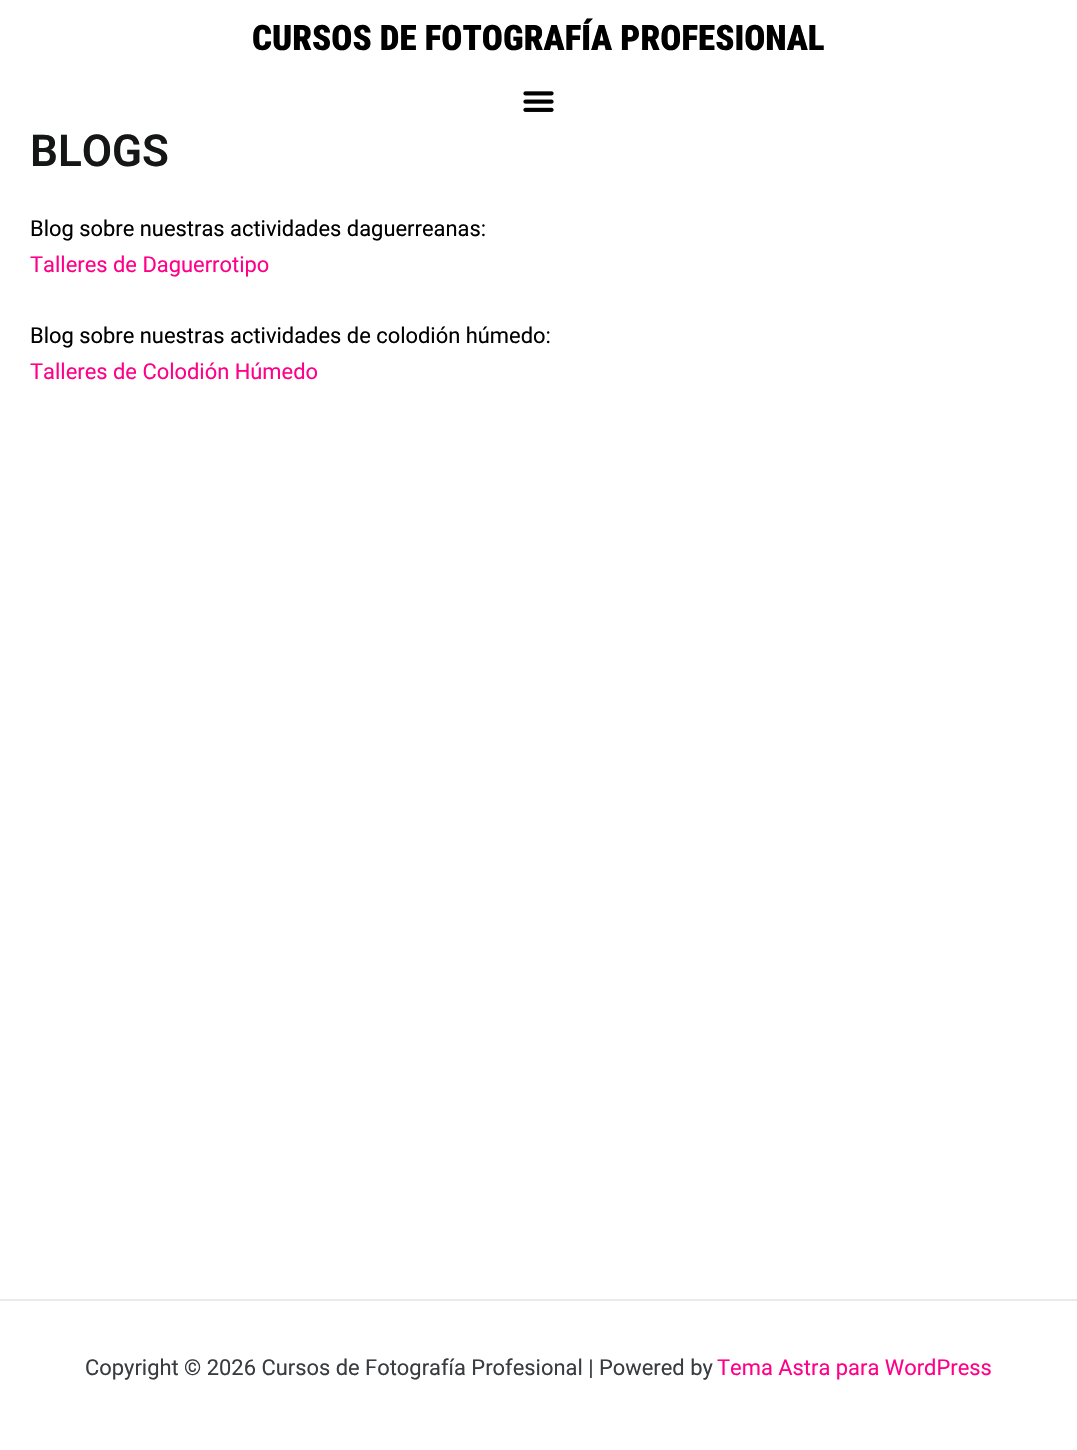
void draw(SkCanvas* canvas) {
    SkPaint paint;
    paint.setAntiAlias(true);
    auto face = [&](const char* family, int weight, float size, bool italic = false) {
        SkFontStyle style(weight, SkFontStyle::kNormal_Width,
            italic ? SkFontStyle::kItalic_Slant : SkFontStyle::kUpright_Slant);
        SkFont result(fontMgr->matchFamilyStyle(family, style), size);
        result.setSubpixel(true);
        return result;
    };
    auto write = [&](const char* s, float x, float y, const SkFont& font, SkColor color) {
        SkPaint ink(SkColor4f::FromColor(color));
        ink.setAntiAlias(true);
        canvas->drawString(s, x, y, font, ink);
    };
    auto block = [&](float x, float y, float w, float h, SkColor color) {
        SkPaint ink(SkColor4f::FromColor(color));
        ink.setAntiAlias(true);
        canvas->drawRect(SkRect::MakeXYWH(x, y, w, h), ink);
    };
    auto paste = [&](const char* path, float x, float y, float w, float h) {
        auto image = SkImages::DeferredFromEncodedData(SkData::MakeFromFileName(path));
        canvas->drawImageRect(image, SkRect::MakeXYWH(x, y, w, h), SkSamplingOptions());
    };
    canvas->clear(SK_ColorWHITE);
    auto kFont1 = face("Roboto Condensed", 900, 35);
    write("CURSOS DE FOTOGRAFÍA PROFESIONAL", 252, 50, kFont1, SK_ColorBLACK);
    paste("pic1.png", 523, 91, 31, 21);
    auto kFont2 = face("Roboto", 600, 44);
    write("BLOGS", 30, 166, kFont2, SkColorSetRGB(21, 22, 22));
    auto kFont3 = face("Roboto", 400, 21.9f);
    write("Blog sobre nuestras actividades daguerreanas:", 30, 236, kFont3, SK_ColorBLACK);
    write("Talleres de Daguerrotipo", 30, 272, kFont3, SkColorSetRGB(255, 0, 136));
    write("Blog sobre nuestras actividades de colodión húmedo:", 30, 343, kFont3, SK_ColorBLACK);
    write("Talleres de Colodión Húmedo", 30, 379, kFont3, SkColorSetRGB(255, 0, 136));
    block(0, 1299, 1077, 2, SkColorSetRGB(234, 234, 234));
    write("Copyright © 2026 Cursos de Fotografía Profesional | Powered by", 85, 1375, kFont3, SkColorSetRGB(57, 60, 64));
    write("Tema Astra para WordPress", 717, 1375, kFont3, SkColorSetRGB(255, 0, 136));
}
